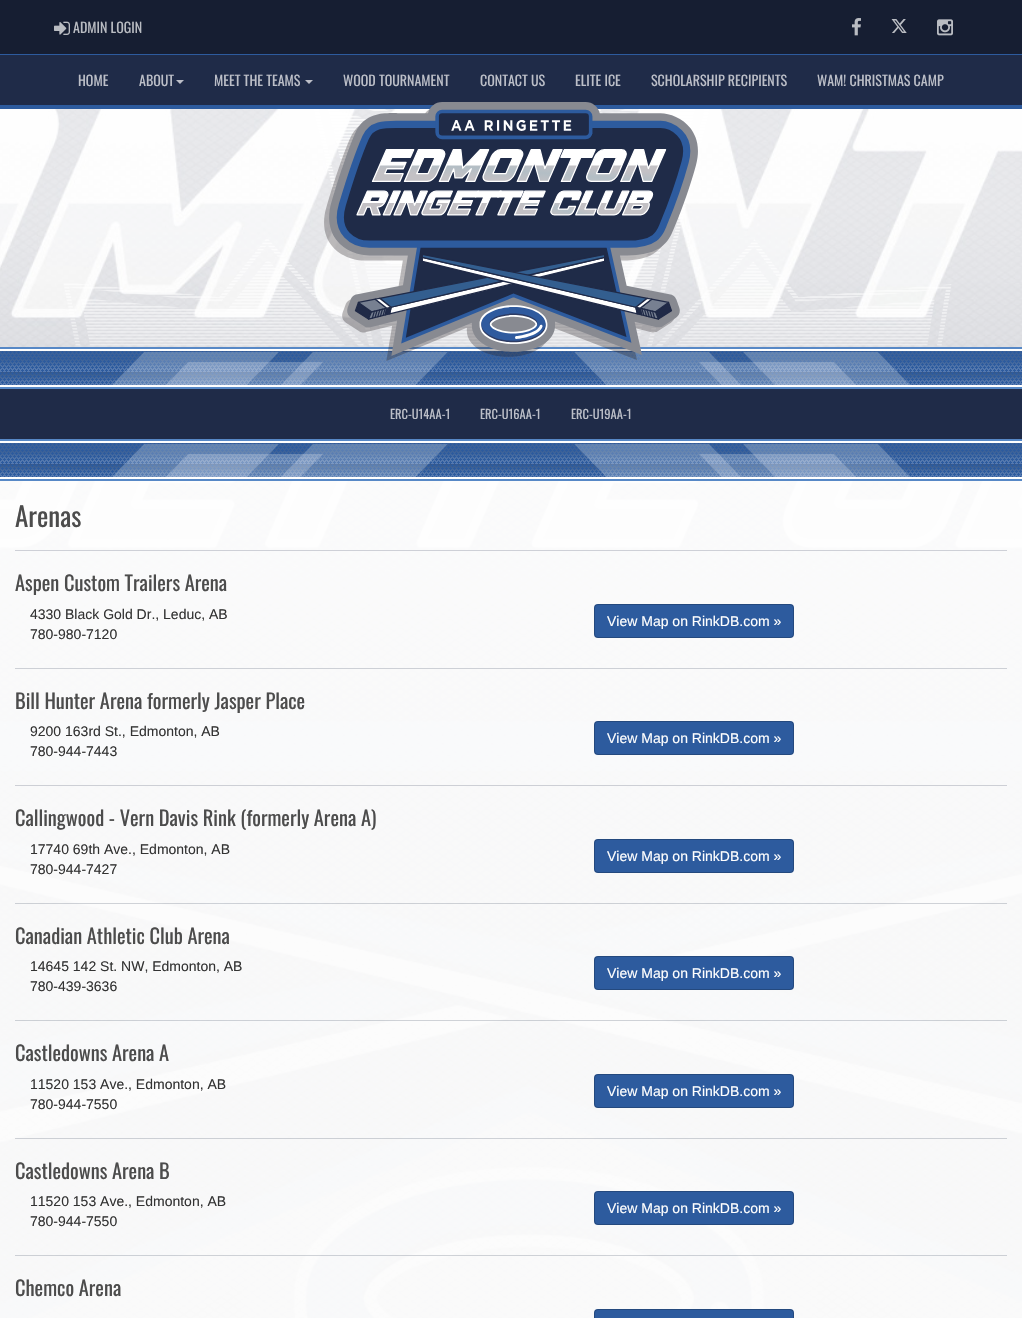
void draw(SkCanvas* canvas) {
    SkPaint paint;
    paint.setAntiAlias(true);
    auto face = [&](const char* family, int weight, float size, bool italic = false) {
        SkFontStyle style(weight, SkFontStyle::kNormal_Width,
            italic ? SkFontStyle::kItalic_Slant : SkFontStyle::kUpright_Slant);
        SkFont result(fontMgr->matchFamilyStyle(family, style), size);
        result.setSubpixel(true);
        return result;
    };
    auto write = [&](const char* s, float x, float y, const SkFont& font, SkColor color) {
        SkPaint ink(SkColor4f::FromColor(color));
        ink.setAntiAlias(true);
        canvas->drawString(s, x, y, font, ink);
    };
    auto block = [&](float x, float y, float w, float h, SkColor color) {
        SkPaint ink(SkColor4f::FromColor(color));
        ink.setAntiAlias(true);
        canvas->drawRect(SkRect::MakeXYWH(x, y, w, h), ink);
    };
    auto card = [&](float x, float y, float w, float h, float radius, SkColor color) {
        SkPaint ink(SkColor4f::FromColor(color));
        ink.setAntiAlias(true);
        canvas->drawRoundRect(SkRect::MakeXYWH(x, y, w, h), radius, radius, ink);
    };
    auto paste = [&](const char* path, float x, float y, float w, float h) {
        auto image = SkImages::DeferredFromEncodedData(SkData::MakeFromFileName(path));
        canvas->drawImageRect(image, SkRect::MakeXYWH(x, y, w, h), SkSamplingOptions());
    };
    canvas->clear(SK_ColorWHITE);
    block(0, 54, 1022, 1, SkColorSetRGB(45, 91, 158));
    block(0, 0, 1022, 54, SkColorSetRGB(22, 30, 50));
    paste("pic1.png", 54, 21, 16, 14);
    auto kFont1 = face("Oswald", 400, 14);
    write("ADMIN LOGIN", 73, 33, kFont1, SkColorSetRGB(185, 188, 194));
    paste("pic2.png", 852, 18, 9, 18);
    paste("pic3.png", 891, 19, 16, 14);
    paste("pic4.png", 937, 19, 16, 17);
    block(0, 55, 1022, 50, SkColorSetRGB(31, 43, 72));
    block(0, 105, 1022, 4, SkColorSetRGB(45, 91, 158));
    write("HOME", 78, 86, kFont1, SkColorSetRGB(188, 191, 200));
    write("ABOUT", 139, 86, kFont1, SkColorSetRGB(188, 191, 200));
    paint.setColor(SkColorSetRGB(188, 191, 200));
    canvas->drawPath(SkPathBuilder().moveTo(176, 80).lineTo(184, 80).lineTo(180, 84).close().detach(), paint);
    write("MEET THE TEAMS", 214, 86, kFont1, SkColorSetRGB(188, 191, 200));
    canvas->drawPath(SkPathBuilder().moveTo(305, 80).lineTo(313, 80).lineTo(309, 84).close().detach(), paint);
    write("WOOD TOURNAMENT", 343, 86, kFont1, SkColorSetRGB(188, 191, 200));
    write("CONTACT US", 480, 86, kFont1, SkColorSetRGB(188, 191, 200));
    write("ELITE ICE", 575, 86, kFont1, SkColorSetRGB(188, 191, 200));
    write("SCHOLARSHIP RECIPIENTS", 651, 86, kFont1, SkColorSetRGB(188, 191, 200));
    write("WAM! CHRISTMAS CAMP", 817, 86, kFont1, SkColorSetRGB(188, 191, 200));
    paste("pic6.png", 0, 109, 1022, 1209);
    paste("pic7.png", 0, 109, 1022, 238);
    block(0, 351, 1022, 34, SkColorSetRGB(45, 91, 158));
    paste("pic8.png", 0, 347, 1022, 42);
    paste("pic5.png", 324, 102, 374, 259);
    block(0, 389, 1022, 50, SkColorSetRGB(31, 43, 72));
    auto kFont2 = face("Oswald", 400, 12.5f);
    write("ERC-U14AA-1", 390, 419, kFont2, SkColorSetRGB(188, 191, 200));
    write("ERC-U16AA-1", 480, 419, kFont2, SkColorSetRGB(188, 191, 200));
    write("ERC-U19AA-1", 571, 419, kFont2, SkColorSetRGB(188, 191, 200));
    block(0, 443, 1022, 34, SkColorSetRGB(45, 91, 158));
    paste("pic8.png", 0, 439, 1022, 42);
    block(0, 481, 1022, 837, SkColorSetARGB(230, 255, 255, 255));
    auto kFont3 = face("Oswald", 400, 27);
    write("Arenas", 15, 527, kFont3, SkColorSetRGB(76, 76, 76));
    block(15, 550, 992, 1, SkColorSetRGB(206, 208, 215));
    auto kFont4 = face("Oswald", 400, 20.4f);
    write("Aspen Custom Trailers Arena", 15, 591, kFont4, SkColorSetRGB(76, 76, 76));
    auto kFont5 = face("Liberation Sans", 400, 14);
    write("4330 Black Gold Dr., Leduc, AB", 30, 619, kFont5, SkColorSetRGB(51, 51, 51));
    write("780-980-7120", 30, 639, kFont5, SkColorSetRGB(51, 51, 51));
    card(594, 604, 200, 34, 4, SkColorSetRGB(45, 91, 158));
    paint.setStyle(SkPaint::kStroke_Style);
    paint.setStrokeWidth(1);
    paint.setColor(SkColorSetARGB(51, 0, 0, 0));
    canvas->drawRoundRect(SkRect::MakeXYWH(594.5f, 604.5f, 199, 33), 3.5f, 3.5f, paint);
    write("View Map on RinkDB.com »", 607, 626, kFont5, SK_ColorWHITE);
    block(15, 668, 992, 1, SkColorSetRGB(205, 208, 214));
    write("Bill Hunter Arena formerly Jasper Place", 15, 709, kFont4, SkColorSetRGB(76, 76, 76));
    write("9200 163rd St., Edmonton, AB", 30, 736, kFont5, SkColorSetRGB(51, 51, 51));
    write("780-944-7443", 30, 756, kFont5, SkColorSetRGB(51, 51, 51));
    card(594, 721, 200, 34, 4, SkColorSetRGB(45, 91, 158));
    canvas->drawRoundRect(SkRect::MakeXYWH(594.5f, 721.5f, 199, 33), 3.5f, 3.5f, paint);
    write("View Map on RinkDB.com »", 607, 743, kFont5, SK_ColorWHITE);
    block(15, 785, 992, 1, SkColorSetRGB(205, 207, 213));
    write("Callingwood - Vern Davis Rink (formerly Arena A)", 15, 826, kFont4, SkColorSetRGB(76, 76, 76));
    write("17740 69th Ave., Edmonton, AB", 30, 854, kFont5, SkColorSetRGB(51, 51, 51));
    write("780-944-7427", 30, 874, kFont5, SkColorSetRGB(51, 51, 51));
    card(594, 839, 200, 34, 4, SkColorSetRGB(45, 91, 158));
    canvas->drawRoundRect(SkRect::MakeXYWH(594.5f, 839.5f, 199, 33), 3.5f, 3.5f, paint);
    write("View Map on RinkDB.com »", 607, 861, kFont5, SK_ColorWHITE);
    block(15, 903, 992, 1, SkColorSetARGB(51, 31, 43, 72));
    write("Canadian Athletic Club Arena", 15, 944, kFont4, SkColorSetRGB(76, 76, 76));
    write("14645 142 St. NW, Edmonton, AB", 30, 971, kFont5, SkColorSetRGB(51, 51, 51));
    write("780-439-3636", 30, 991, kFont5, SkColorSetRGB(51, 51, 51));
    card(594, 956, 200, 34, 4, SkColorSetRGB(45, 91, 158));
    canvas->drawRoundRect(SkRect::MakeXYWH(594.5f, 956.5f, 199, 33), 3.5f, 3.5f, paint);
    write("View Map on RinkDB.com »", 607, 978, kFont5, SK_ColorWHITE);
    block(15, 1020, 992, 1, SkColorSetARGB(51, 31, 43, 72));
    write("Castledowns Arena A", 15, 1061, kFont4, SkColorSetRGB(76, 76, 76));
    write("11520 153 Ave., Edmonton, AB", 30, 1089, kFont5, SkColorSetRGB(51, 51, 51));
    write("780-944-7550", 30, 1109, kFont5, SkColorSetRGB(51, 51, 51));
    card(594, 1074, 200, 34, 4, SkColorSetRGB(45, 91, 158));
    canvas->drawRoundRect(SkRect::MakeXYWH(594.5f, 1074.5f, 199, 33), 3.5f, 3.5f, paint);
    write("View Map on RinkDB.com »", 607, 1096, kFont5, SK_ColorWHITE);
    block(15, 1138, 992, 1, SkColorSetARGB(51, 31, 43, 72));
    write("Castledowns Arena B", 15, 1179, kFont4, SkColorSetRGB(76, 76, 76));
    write("11520 153 Ave., Edmonton, AB", 30, 1206, kFont5, SkColorSetRGB(51, 51, 51));
    write("780-944-7550", 30, 1226, kFont5, SkColorSetRGB(51, 51, 51));
    card(594, 1191, 200, 34, 4, SkColorSetRGB(45, 91, 158));
    canvas->drawRoundRect(SkRect::MakeXYWH(594.5f, 1191.5f, 199, 33), 3.5f, 3.5f, paint);
    write("View Map on RinkDB.com »", 607, 1213, kFont5, SK_ColorWHITE);
    block(15, 1255, 992, 1, SkColorSetARGB(51, 31, 43, 72));
    write("Chemco Arena", 15, 1296, kFont4, SkColorSetRGB(76, 76, 76));
    card(594, 1309, 200, 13, 4, SkColorSetRGB(45, 91, 158));
    canvas->drawRoundRect(SkRect::MakeXYWH(594.5f, 1309.5f, 199, 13), 3.5f, 3.5f, paint);
}
